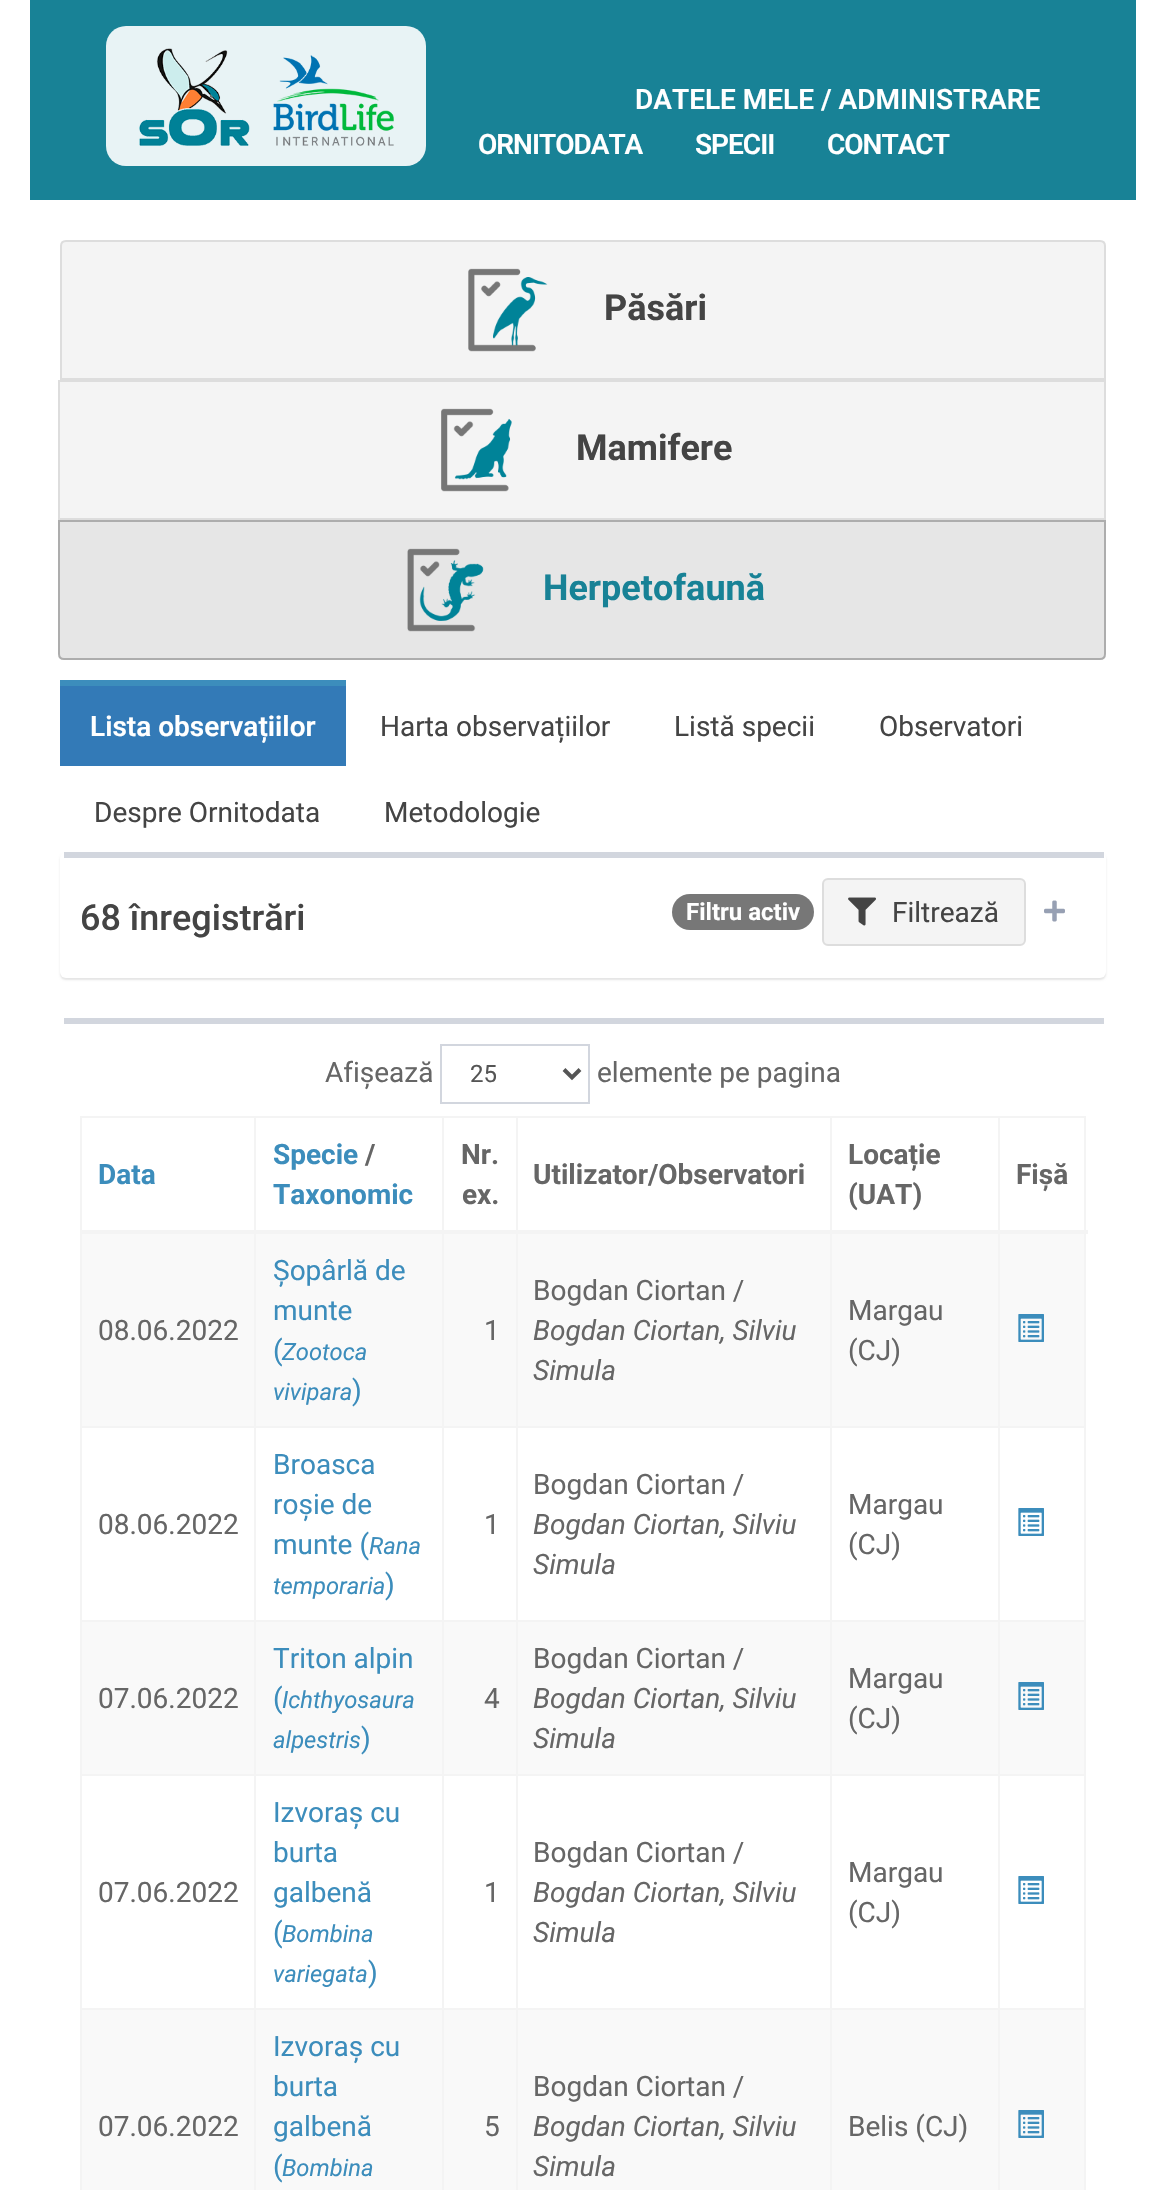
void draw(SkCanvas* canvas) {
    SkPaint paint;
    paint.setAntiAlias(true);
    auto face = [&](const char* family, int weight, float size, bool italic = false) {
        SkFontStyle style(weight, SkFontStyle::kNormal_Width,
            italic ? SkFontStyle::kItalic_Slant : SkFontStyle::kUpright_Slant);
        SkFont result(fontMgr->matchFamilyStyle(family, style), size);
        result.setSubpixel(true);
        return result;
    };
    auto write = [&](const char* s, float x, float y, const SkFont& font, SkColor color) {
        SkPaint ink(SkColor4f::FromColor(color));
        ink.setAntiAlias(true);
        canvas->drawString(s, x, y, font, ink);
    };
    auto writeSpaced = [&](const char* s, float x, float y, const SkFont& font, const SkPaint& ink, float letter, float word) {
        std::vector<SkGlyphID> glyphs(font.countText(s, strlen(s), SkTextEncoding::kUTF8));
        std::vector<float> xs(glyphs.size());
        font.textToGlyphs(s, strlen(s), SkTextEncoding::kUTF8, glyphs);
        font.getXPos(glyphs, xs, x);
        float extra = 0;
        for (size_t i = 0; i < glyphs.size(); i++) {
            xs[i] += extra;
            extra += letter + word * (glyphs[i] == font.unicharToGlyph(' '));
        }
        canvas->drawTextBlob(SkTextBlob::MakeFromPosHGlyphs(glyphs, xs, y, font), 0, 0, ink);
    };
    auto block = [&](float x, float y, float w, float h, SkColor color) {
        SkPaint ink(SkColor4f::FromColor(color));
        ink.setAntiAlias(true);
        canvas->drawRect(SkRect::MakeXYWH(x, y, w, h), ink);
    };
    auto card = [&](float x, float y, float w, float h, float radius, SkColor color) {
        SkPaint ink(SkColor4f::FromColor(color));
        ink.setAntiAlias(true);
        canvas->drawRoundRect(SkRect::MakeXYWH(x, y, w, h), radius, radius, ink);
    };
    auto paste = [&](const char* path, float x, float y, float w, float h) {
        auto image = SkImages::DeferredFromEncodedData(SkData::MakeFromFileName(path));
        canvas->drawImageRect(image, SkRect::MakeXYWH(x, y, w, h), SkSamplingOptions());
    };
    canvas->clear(SK_ColorWHITE);
    block(30, 0, 1106, 200, SkColorSetRGB(24, 130, 150));
    card(106, 26, 320, 140, 20, SkColorSetRGB(232, 243, 245));
    paste("pic1.png", 139, 48, 111, 98);
    paste("pic2.png", 273, 55, 121, 91);
    auto kFont1 = face("Roboto", 600, 28);
    write("DATELE MELE / ADMINISTRARE", 635, 109, kFont1, SK_ColorWHITE);
    paint.setColor(SK_ColorWHITE);
    writeSpaced("ORNITODATA", 478, 154, kFont1, paint, -1, 0);
    writeSpaced("SPECII", 695, 154, kFont1, paint, -1, 0);
    writeSpaced("CONTACT", 827, 154, kFont1, paint, -1, 0);
    paint.setColor(SkColorSetRGB(244, 244, 244));
    canvas->drawPath(SkPathBuilder().moveTo(66, 241).lineTo(1100, 241).cubicTo(1103, 241, 1105, 243, 1105, 246).lineTo(1105, 379).lineTo(61, 379).lineTo(61, 246).cubicTo(61, 243, 63, 241, 66, 241).close().detach(), paint);
    paint.setStyle(SkPaint::kStroke_Style);
    paint.setStrokeWidth(2);
    paint.setColor(SkColorSetRGB(221, 221, 221));
    canvas->drawPath(SkPathBuilder().moveTo(66, 241).lineTo(1100, 241).cubicTo(1103, 241, 1105, 243, 1105, 246).lineTo(1105, 379).lineTo(61, 379).lineTo(61, 246).cubicTo(61, 243, 63, 241, 66, 241).close().detach(), paint);
    paste("pic3.png", 468, 268, 80, 84);
    auto kFont2 = face("Roboto", 700, 36);
    write("Păsări", 604, 320, kFont2, SkColorSetRGB(68, 68, 68));
    paint.setStyle(SkPaint::kFill_Style);
    paint.setColor(SkColorSetRGB(244, 244, 244));
    canvas->drawRect(SkRect::MakeXYWH(59, 381, 1046, 138), paint);
    paint.setStyle(SkPaint::kStroke_Style);
    paint.setColor(SkColorSetRGB(221, 221, 221));
    canvas->drawRect(SkRect::MakeXYWH(59, 381, 1046, 138), paint);
    paste("pic4.png", 441, 408, 71, 84);
    write("Mamifere", 576, 460, kFont2, SkColorSetRGB(68, 68, 68));
    paint.setStyle(SkPaint::kFill_Style);
    paint.setColor(SkColorSetRGB(230, 230, 230));
    canvas->drawPath(SkPathBuilder().moveTo(59, 521).lineTo(1105, 521).lineTo(1105, 654).cubicTo(1105, 657, 1103, 659, 1100, 659).lineTo(64, 659).cubicTo(61, 659, 59, 657, 59, 654).close().detach(), paint);
    paint.setStyle(SkPaint::kStroke_Style);
    paint.setColor(SkColorSetRGB(173, 173, 173));
    canvas->drawPath(SkPathBuilder().moveTo(59, 521).lineTo(1105, 521).lineTo(1105, 654).cubicTo(1105, 657, 1103, 659, 1100, 659).lineTo(64, 659).cubicTo(61, 659, 59, 657, 59, 654).close().detach(), paint);
    paste("pic5.png", 407, 548, 77, 84);
    write("Herpetofaună", 543, 600, kFont2, SkColorSetRGB(24, 130, 150));
    block(60, 686, 286, 80, SkColorSetRGB(51, 122, 183));
    block(60, 680, 286, 6, SkColorSetRGB(60, 141, 188));
    write("Lista observațiilor", 90, 736, kFont1, SK_ColorWHITE);
    auto kFont3 = face("Roboto", 400, 28);
    write("Harta observațiilor", 380, 736, kFont3, SkColorSetRGB(68, 68, 68));
    write("Listă specii", 674, 736, kFont3, SkColorSetRGB(68, 68, 68));
    write("Observatori", 879, 736, kFont3, SkColorSetRGB(68, 68, 68));
    write("Despre Ornitodata", 94, 822, kFont3, SkColorSetRGB(68, 68, 68));
    write("Metodologie", 384, 822, kFont3, SkColorSetRGB(68, 68, 68));
    paint.setStyle(SkPaint::kFill_Style);
    paint.setColor(SkColorSetARGB(26, 0, 0, 0));
    paint.setMaskFilter(SkMaskFilter::MakeBlur(kNormal_SkBlurStyle, 1));
    canvas->drawRoundRect(SkRect::MakeXYWH(60, 854, 1046, 126), 6, 6, paint);
    paint.setMaskFilter(nullptr);
    card(60, 852, 1046, 126, 6, SK_ColorWHITE);
    block(64, 852, 1040, 6, SkColorSetRGB(210, 214, 222));
    auto kFont4 = face("Roboto", 500, 36);
    write("68 înregistrări", 80, 930, kFont4, SkColorSetRGB(68, 68, 68));
    card(672, 894, 142, 36, 18, SkColorSetRGB(119, 119, 119));
    auto kFont5 = face("Roboto", 700, 24);
    write("Filtru activ", 686, 920, kFont5, SK_ColorWHITE);
    paint.setColor(SkColorSetRGB(244, 244, 244));
    canvas->drawRoundRect(SkRect::MakeXYWH(823, 879, 202, 66), 5, 5, paint);
    paint.setStyle(SkPaint::kStroke_Style);
    paint.setColor(SkColorSetRGB(221, 221, 221));
    canvas->drawRoundRect(SkRect::MakeXYWH(823, 879, 202, 66), 5, 5, paint);
    paste("pic6.png", 848, 897, 28, 29);
    write("Filtrează", 892, 922, kFont3, SkColorSetRGB(68, 68, 68));
    paste("pic7.png", 1044, 900, 21, 22);
    block(64, 1018, 1040, 6, SkColorSetRGB(210, 214, 222));
    write("Afișează", 325, 1082, kFont3, SkColorSetRGB(102, 102, 102));
    paint.setColor(SkColorSetRGB(210, 214, 222));
    canvas->drawRect(SkRect::MakeXYWH(441, 1045, 148, 58), paint);
    paint.setStrokeWidth(4);
    paint.setColor(SkColorSetRGB(85, 85, 85));
    canvas->drawPath(SkPathBuilder().moveTo(564, 1069.5f).lineTo(572, 1077.5f).lineTo(580, 1069.5f).detach(), paint);
    auto kFont6 = face("Roboto", 400, 24);
    write("25", 470, 1082, kFont6, SkColorSetRGB(85, 85, 85));
    write("elemente pe pagina", 597, 1082, kFont3, SkColorSetRGB(102, 102, 102));
    block(80, 1116, 1006, 2, SkColorSetRGB(244, 244, 244));
    block(1084, 1116, 2, 1074, SkColorSetRGB(244, 244, 244));
    block(80, 1116, 2, 1074, SkColorSetRGB(244, 244, 244));
    auto kFont7 = face("Roboto", 700, 28);
    write("Data", 98, 1184, kFont7, SkColorSetRGB(60, 141, 188));
    write("Specie", 273, 1164, kFont7, SkColorSetRGB(60, 141, 188));
    write("/", 365, 1164, kFont7, SkColorSetRGB(102, 102, 102));
    write("Taxonomic", 273, 1204, kFont7, SkColorSetRGB(60, 141, 188));
    write("Nr.", 461, 1164, kFont7, SkColorSetRGB(102, 102, 102));
    write("ex.", 462, 1204, kFont7, SkColorSetRGB(102, 102, 102));
    write("Utilizator/Observatori", 533, 1184, kFont7, SkColorSetRGB(102, 102, 102));
    write("Locație", 848, 1164, kFont7, SkColorSetRGB(102, 102, 102));
    write("(UAT)", 848, 1204, kFont7, SkColorSetRGB(102, 102, 102));
    block(82, 1234, 1002, 192, SkColorSetRGB(249, 249, 249));
    block(998, 1426, 88, 2, SkColorSetRGB(244, 244, 244));
    block(998, 1620, 88, 2, SkColorSetRGB(244, 244, 244));
    block(82, 1622, 1002, 152, SkColorSetRGB(249, 249, 249));
    block(998, 1774, 88, 2, SkColorSetRGB(244, 244, 244));
    block(998, 2008, 88, 2, SkColorSetRGB(244, 244, 244));
    block(82, 2010, 1002, 180, SkColorSetRGB(249, 249, 249));
    block(998, 2008, 2, 182, SkColorSetRGB(244, 244, 244));
    block(830, 2008, 170, 2, SkColorSetRGB(244, 244, 244));
    block(998, 1774, 2, 236, SkColorSetRGB(244, 244, 244));
    block(830, 1774, 170, 2, SkColorSetRGB(244, 244, 244));
    block(998, 1620, 2, 156, SkColorSetRGB(244, 244, 244));
    block(830, 1620, 170, 2, SkColorSetRGB(244, 244, 244));
    block(998, 1426, 2, 196, SkColorSetRGB(244, 244, 244));
    block(830, 1426, 170, 2, SkColorSetRGB(244, 244, 244));
    block(830, 2008, 2, 182, SkColorSetRGB(244, 244, 244));
    block(516, 2008, 316, 2, SkColorSetRGB(244, 244, 244));
    block(830, 1774, 2, 236, SkColorSetRGB(244, 244, 244));
    block(516, 1774, 316, 2, SkColorSetRGB(244, 244, 244));
    block(830, 1620, 2, 156, SkColorSetRGB(244, 244, 244));
    block(516, 1620, 316, 2, SkColorSetRGB(244, 244, 244));
    block(830, 1426, 2, 196, SkColorSetRGB(244, 244, 244));
    block(516, 1426, 316, 2, SkColorSetRGB(244, 244, 244));
    block(516, 2008, 2, 182, SkColorSetRGB(244, 244, 244));
    block(442, 2008, 76, 2, SkColorSetRGB(244, 244, 244));
    block(516, 1774, 2, 236, SkColorSetRGB(244, 244, 244));
    block(442, 1774, 76, 2, SkColorSetRGB(244, 244, 244));
    block(516, 1620, 2, 156, SkColorSetRGB(244, 244, 244));
    block(442, 1620, 76, 2, SkColorSetRGB(244, 244, 244));
    block(516, 1426, 2, 196, SkColorSetRGB(244, 244, 244));
    block(442, 1426, 76, 2, SkColorSetRGB(244, 244, 244));
    block(442, 2008, 2, 182, SkColorSetRGB(244, 244, 244));
    block(254, 2008, 190, 2, SkColorSetRGB(244, 244, 244));
    block(442, 1774, 2, 236, SkColorSetRGB(244, 244, 244));
    block(254, 1774, 190, 2, SkColorSetRGB(244, 244, 244));
    block(442, 1620, 2, 156, SkColorSetRGB(244, 244, 244));
    block(254, 1620, 190, 2, SkColorSetRGB(244, 244, 244));
    block(442, 1426, 2, 196, SkColorSetRGB(244, 244, 244));
    block(254, 1426, 190, 2, SkColorSetRGB(244, 244, 244));
    block(254, 2008, 2, 182, SkColorSetRGB(244, 244, 244));
    block(80, 2008, 176, 2, SkColorSetRGB(244, 244, 244));
    block(254, 1774, 2, 236, SkColorSetRGB(244, 244, 244));
    block(80, 1774, 176, 2, SkColorSetRGB(244, 244, 244));
    block(254, 1620, 2, 156, SkColorSetRGB(244, 244, 244));
    block(80, 1620, 176, 2, SkColorSetRGB(244, 244, 244));
    block(254, 1426, 2, 196, SkColorSetRGB(244, 244, 244));
    block(80, 1426, 176, 2, SkColorSetRGB(244, 244, 244));
    block(254, 1116, 2, 312, SkColorSetRGB(244, 244, 244));
    block(442, 1116, 2, 312, SkColorSetRGB(244, 244, 244));
    block(516, 1116, 2, 312, SkColorSetRGB(244, 244, 244));
    block(830, 1116, 2, 312, SkColorSetRGB(244, 244, 244));
    block(998, 1116, 2, 312, SkColorSetRGB(244, 244, 244));
    block(80, 1230, 1008, 4, SkColorSetRGB(244, 244, 244));
    write("Fișă", 1016, 1184, kFont7, SkColorSetRGB(102, 102, 102));
    write("08.06.2022", 98, 1340, kFont3, SkColorSetRGB(102, 102, 102));
    write("Șopârlă de", 273, 1280, kFont3, SkColorSetRGB(60, 141, 188));
    write("munte", 273, 1320, kFont3, SkColorSetRGB(60, 141, 188));
    write("(", 273, 1360, kFont3, SkColorSetRGB(60, 141, 188));
    auto kFont8 = face("Roboto", 400, 23.75f, true);
    write("Zootoca", 282, 1360, kFont8, SkColorSetRGB(60, 141, 188));
    write("vivipara", 273, 1400, kFont8, SkColorSetRGB(60, 141, 188));
    write(")", 352, 1400, kFont3, SkColorSetRGB(60, 141, 188));
    write("1", 484, 1340, kFont3, SkColorSetRGB(102, 102, 102));
    write("Bogdan Ciortan /", 533, 1300, kFont3, SkColorSetRGB(102, 102, 102));
    auto kFont9 = face("Roboto", 400, 28, true);
    write("Bogdan Ciortan, Silviu", 533, 1340, kFont9, SkColorSetRGB(102, 102, 102));
    write("Simula", 533, 1380, kFont9, SkColorSetRGB(102, 102, 102));
    write("Margau", 848, 1320, kFont3, SkColorSetRGB(102, 102, 102));
    write("(CJ)", 848, 1360, kFont3, SkColorSetRGB(102, 102, 102));
    paste("pic8.png", 1018, 1314, 26, 28);
    write("08.06.2022", 98, 1534, kFont3, SkColorSetRGB(102, 102, 102));
    write("Broasca", 273, 1474, kFont3, SkColorSetRGB(60, 141, 188));
    write("roșie de", 273, 1514, kFont3, SkColorSetRGB(60, 141, 188));
    write("munte (", 273, 1554, kFont3, SkColorSetRGB(60, 141, 188));
    write("Rana", 369, 1554, kFont8, SkColorSetRGB(60, 141, 188));
    write("temporaria", 273, 1594, kFont8, SkColorSetRGB(60, 141, 188));
    write(")", 385, 1594, kFont3, SkColorSetRGB(60, 141, 188));
    write("1", 484, 1534, kFont3, SkColorSetRGB(102, 102, 102));
    write("Bogdan Ciortan /", 533, 1494, kFont3, SkColorSetRGB(102, 102, 102));
    write("Bogdan Ciortan, Silviu", 533, 1534, kFont9, SkColorSetRGB(102, 102, 102));
    write("Simula", 533, 1574, kFont9, SkColorSetRGB(102, 102, 102));
    write("Margau", 848, 1514, kFont3, SkColorSetRGB(102, 102, 102));
    write("(CJ)", 848, 1554, kFont3, SkColorSetRGB(102, 102, 102));
    paste("pic9.png", 1018, 1508, 26, 28);
    write("07.06.2022", 98, 1708, kFont3, SkColorSetRGB(102, 102, 102));
    write("Triton alpin", 273, 1668, kFont3, SkColorSetRGB(60, 141, 188));
    write("(", 273, 1708, kFont3, SkColorSetRGB(60, 141, 188));
    write("Ichthyosaura", 282, 1708, kFont8, SkColorSetRGB(60, 141, 188));
    write("alpestris", 273, 1748, kFont8, SkColorSetRGB(60, 141, 188));
    write(")", 361, 1748, kFont3, SkColorSetRGB(60, 141, 188));
    write("4", 484, 1708, kFont3, SkColorSetRGB(102, 102, 102));
    write("Bogdan Ciortan /", 533, 1668, kFont3, SkColorSetRGB(102, 102, 102));
    write("Bogdan Ciortan, Silviu", 533, 1708, kFont9, SkColorSetRGB(102, 102, 102));
    write("Simula", 533, 1748, kFont9, SkColorSetRGB(102, 102, 102));
    write("Margau", 848, 1688, kFont3, SkColorSetRGB(102, 102, 102));
    write("(CJ)", 848, 1728, kFont3, SkColorSetRGB(102, 102, 102));
    paste("pic8.png", 1018, 1682, 26, 28);
    write("07.06.2022", 98, 1902, kFont3, SkColorSetRGB(102, 102, 102));
    write("Izvoraș cu", 273, 1822, kFont3, SkColorSetRGB(60, 141, 188));
    write("burta", 273, 1862, kFont3, SkColorSetRGB(60, 141, 188));
    write("galbenă", 273, 1902, kFont3, SkColorSetRGB(60, 141, 188));
    write("(", 273, 1942, kFont3, SkColorSetRGB(60, 141, 188));
    write("Bombina", 282, 1942, kFont8, SkColorSetRGB(60, 141, 188));
    write("variegata", 273, 1982, kFont8, SkColorSetRGB(60, 141, 188));
    write(")", 368, 1982, kFont3, SkColorSetRGB(60, 141, 188));
    write("1", 484, 1902, kFont3, SkColorSetRGB(102, 102, 102));
    write("Bogdan Ciortan /", 533, 1862, kFont3, SkColorSetRGB(102, 102, 102));
    write("Bogdan Ciortan, Silviu", 533, 1902, kFont9, SkColorSetRGB(102, 102, 102));
    write("Simula", 533, 1942, kFont9, SkColorSetRGB(102, 102, 102));
    write("Margau", 848, 1882, kFont3, SkColorSetRGB(102, 102, 102));
    write("(CJ)", 848, 1922, kFont3, SkColorSetRGB(102, 102, 102));
    paste("pic9.png", 1018, 1876, 26, 28);
    write("07.06.2022", 98, 2136, kFont3, SkColorSetRGB(102, 102, 102));
    write("Izvoraș cu", 273, 2056, kFont3, SkColorSetRGB(60, 141, 188));
    write("burta", 273, 2096, kFont3, SkColorSetRGB(60, 141, 188));
    write("galbenă", 273, 2136, kFont3, SkColorSetRGB(60, 141, 188));
    write("(", 273, 2176, kFont3, SkColorSetRGB(60, 141, 188));
    write("Bombina", 282, 2176, kFont8, SkColorSetRGB(60, 141, 188));
    write("5", 484, 2136, kFont3, SkColorSetRGB(102, 102, 102));
    write("Bogdan Ciortan /", 533, 2096, kFont3, SkColorSetRGB(102, 102, 102));
    write("Bogdan Ciortan, Silviu", 533, 2136, kFont9, SkColorSetRGB(102, 102, 102));
    write("Simula", 533, 2176, kFont9, SkColorSetRGB(102, 102, 102));
    write("Belis (CJ)", 848, 2136, kFont3, SkColorSetRGB(102, 102, 102));
    paste("pic8.png", 1018, 2110, 26, 28);
}
